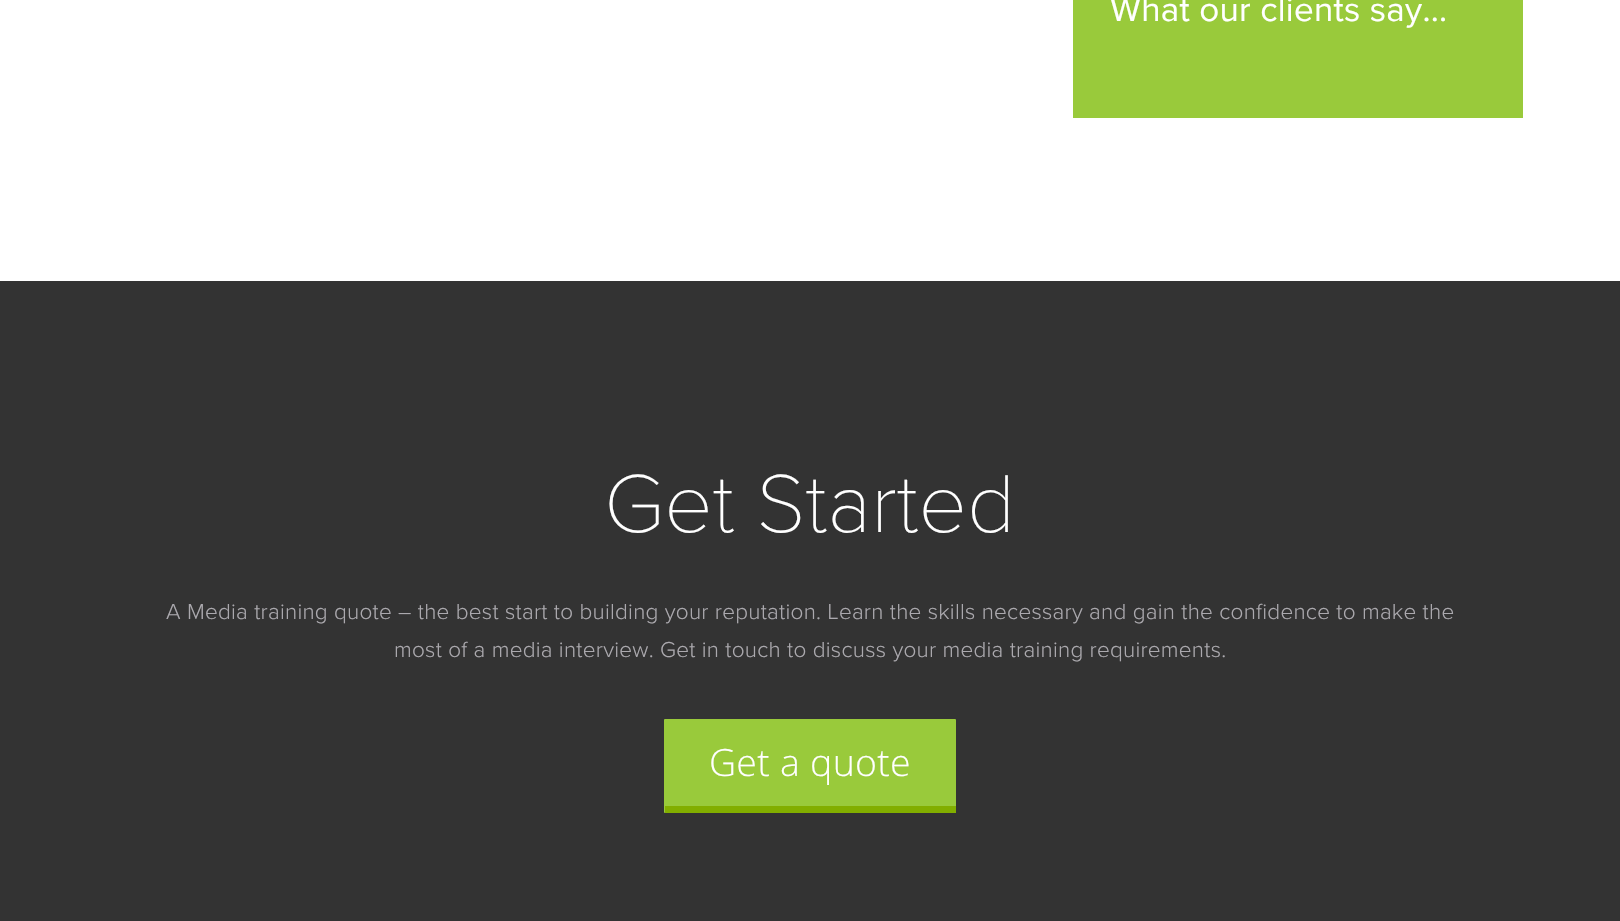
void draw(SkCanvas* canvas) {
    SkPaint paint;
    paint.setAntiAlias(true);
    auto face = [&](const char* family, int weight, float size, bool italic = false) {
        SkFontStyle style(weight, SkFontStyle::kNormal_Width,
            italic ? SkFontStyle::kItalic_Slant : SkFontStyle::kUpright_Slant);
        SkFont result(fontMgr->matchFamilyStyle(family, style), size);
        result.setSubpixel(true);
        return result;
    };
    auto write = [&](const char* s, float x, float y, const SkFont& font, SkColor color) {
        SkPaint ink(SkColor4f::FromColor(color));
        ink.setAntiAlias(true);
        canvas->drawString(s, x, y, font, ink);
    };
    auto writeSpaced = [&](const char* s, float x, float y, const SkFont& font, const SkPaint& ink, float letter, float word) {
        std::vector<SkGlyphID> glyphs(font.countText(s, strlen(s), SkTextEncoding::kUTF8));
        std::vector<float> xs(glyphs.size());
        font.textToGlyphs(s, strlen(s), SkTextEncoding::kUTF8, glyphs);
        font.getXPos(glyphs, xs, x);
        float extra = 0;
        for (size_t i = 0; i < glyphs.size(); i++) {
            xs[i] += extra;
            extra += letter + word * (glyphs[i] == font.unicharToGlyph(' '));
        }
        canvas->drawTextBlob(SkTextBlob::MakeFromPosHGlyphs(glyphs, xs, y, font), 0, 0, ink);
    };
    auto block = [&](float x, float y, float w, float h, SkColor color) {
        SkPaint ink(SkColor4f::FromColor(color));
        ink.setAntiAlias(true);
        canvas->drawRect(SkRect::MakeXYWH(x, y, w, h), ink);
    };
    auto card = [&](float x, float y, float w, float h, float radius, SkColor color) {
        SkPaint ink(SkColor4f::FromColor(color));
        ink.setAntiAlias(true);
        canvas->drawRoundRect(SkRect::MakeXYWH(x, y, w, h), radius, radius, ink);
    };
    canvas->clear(SK_ColorWHITE);
    block(1073, 0, 450, 118, SkColorSetRGB(153, 202, 59));
    auto kFont1 = face("Proxima Nova", 400, 35);
    paint.setColor(SK_ColorWHITE);
    writeSpaced("What our clients say...", 1110, 21, kFont1, paint, 0.25f, 0);
    block(0, 281, 1620, 640, SkColorSetRGB(51, 51, 51));
    auto kFont2 = face("Proxima Nova", 100, 85);
    write("Get Started", 604, 532, kFont2, SK_ColorWHITE);
    auto kFont3 = face("Proxima Nova", 300, 22.5f);
    paint.setColor(SkColorSetRGB(171, 169, 174));
    writeSpaced("A Media training quote – the best start to building your reputation. Learn the skills necessary and gain the confidence to make the", 166, 619, kFont3, paint, 0.25f, 0);
    writeSpaced("most of a media interview. Get in touch to discuss your media training requirements.", 394, 657, kFont3, paint, 0.25f, 0);
    card(664, 719, 292, 94, 1, SkColorSetRGB(153, 202, 59));
    block(665, 806, 291, 7, SkColorSetRGB(130, 174, 0));
    auto kFont4 = face("Open Sans", 300, 37.5f);
    paint.setColor(SK_ColorWHITE);
    writeSpaced("Get a quote", 709, 776, kFont4, paint, 0.25f, 0);
}
